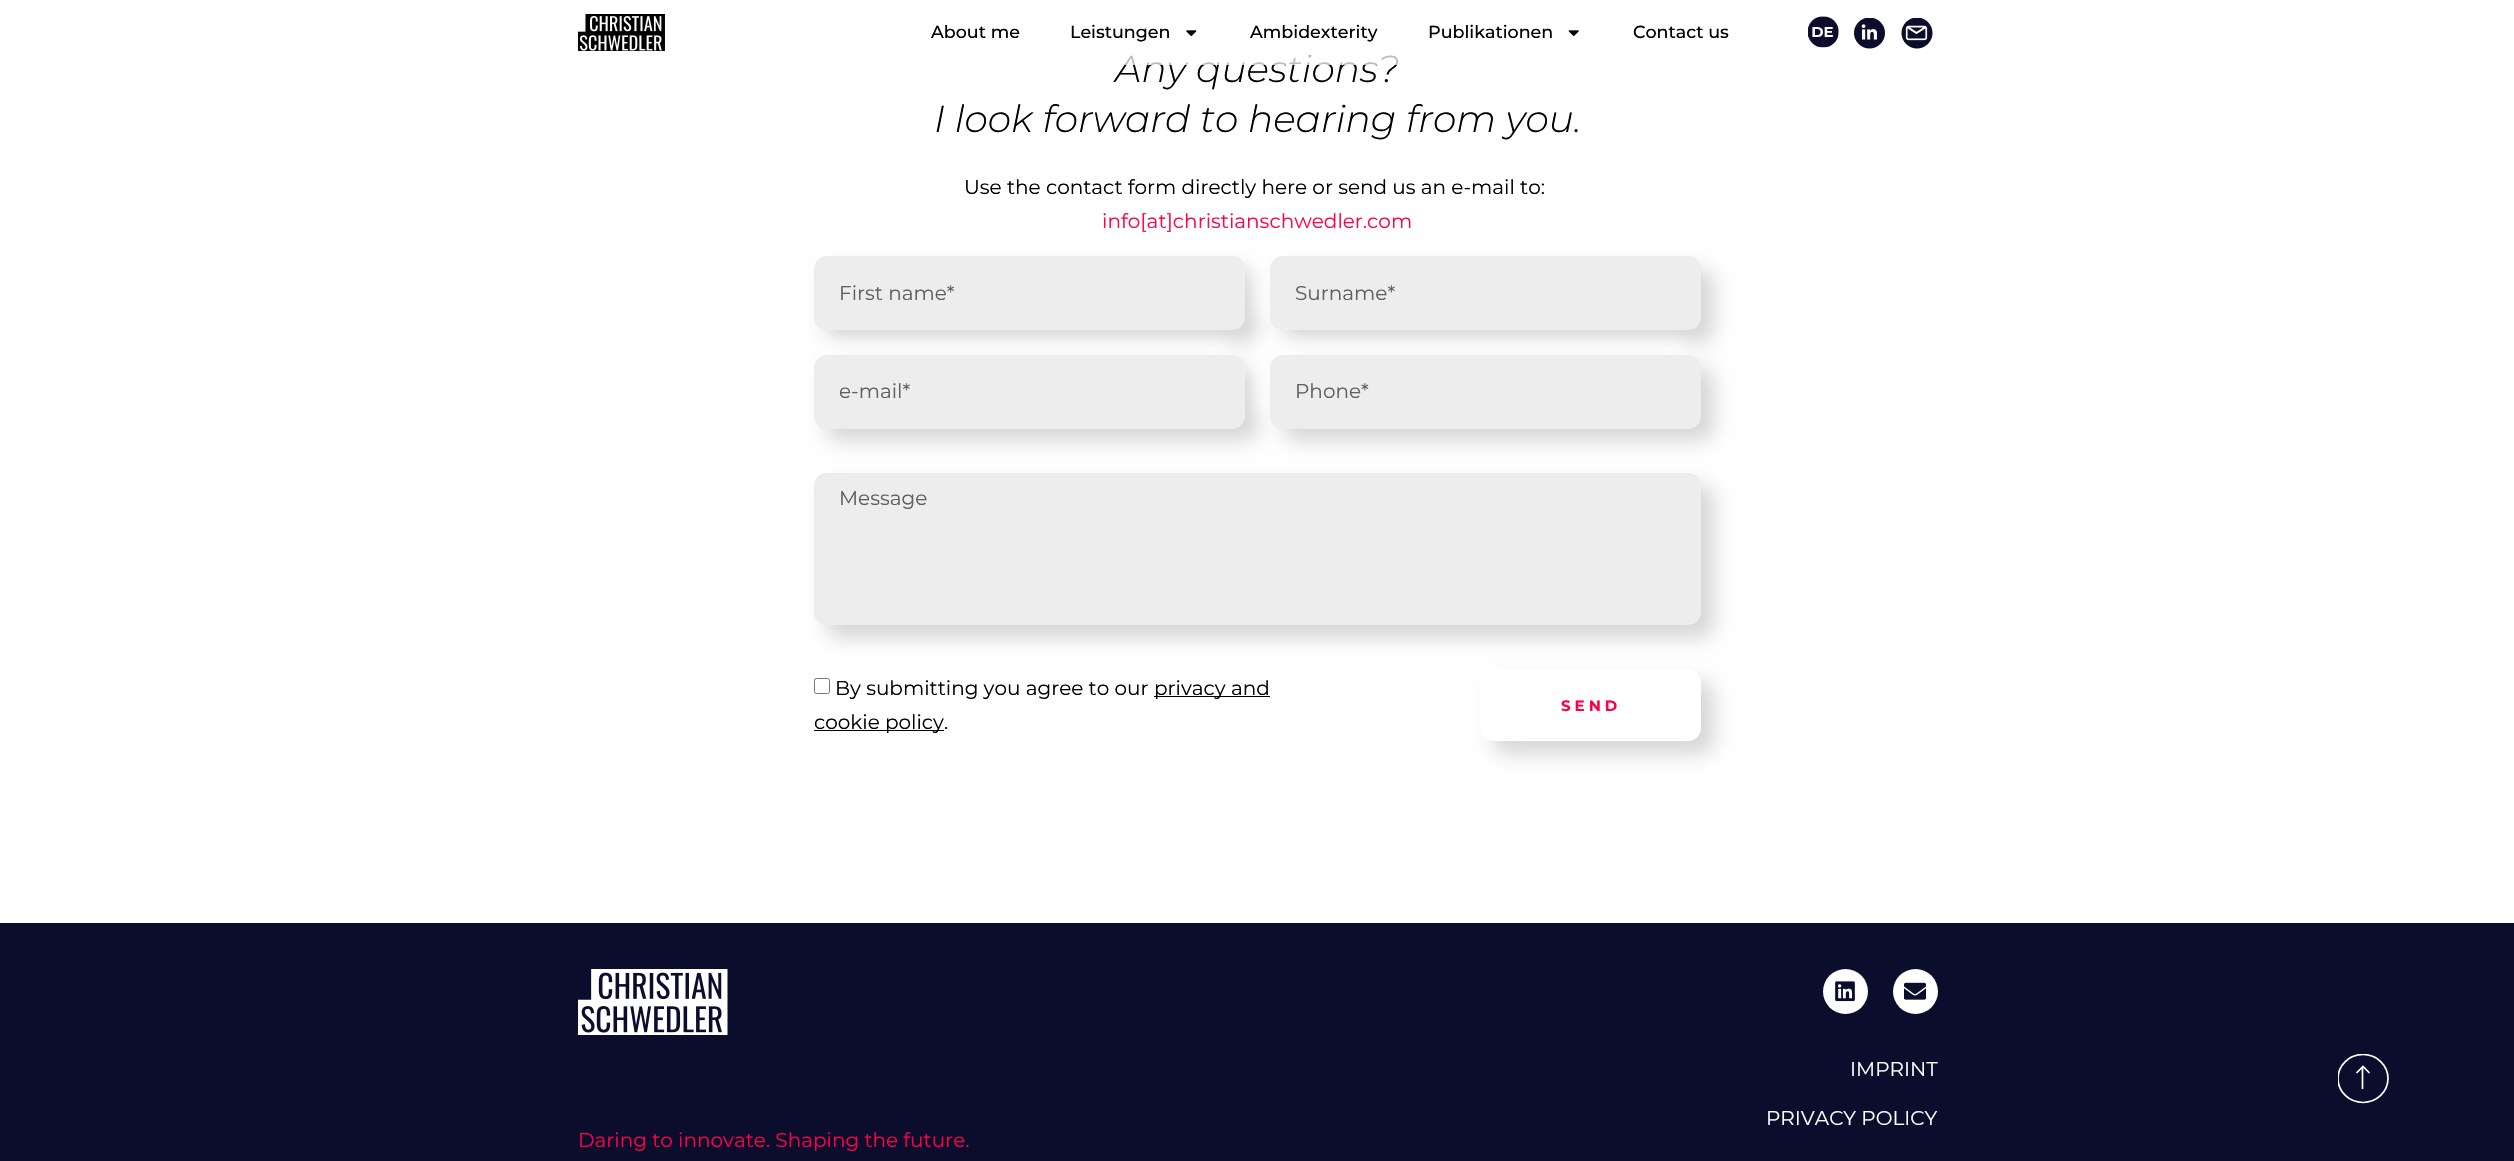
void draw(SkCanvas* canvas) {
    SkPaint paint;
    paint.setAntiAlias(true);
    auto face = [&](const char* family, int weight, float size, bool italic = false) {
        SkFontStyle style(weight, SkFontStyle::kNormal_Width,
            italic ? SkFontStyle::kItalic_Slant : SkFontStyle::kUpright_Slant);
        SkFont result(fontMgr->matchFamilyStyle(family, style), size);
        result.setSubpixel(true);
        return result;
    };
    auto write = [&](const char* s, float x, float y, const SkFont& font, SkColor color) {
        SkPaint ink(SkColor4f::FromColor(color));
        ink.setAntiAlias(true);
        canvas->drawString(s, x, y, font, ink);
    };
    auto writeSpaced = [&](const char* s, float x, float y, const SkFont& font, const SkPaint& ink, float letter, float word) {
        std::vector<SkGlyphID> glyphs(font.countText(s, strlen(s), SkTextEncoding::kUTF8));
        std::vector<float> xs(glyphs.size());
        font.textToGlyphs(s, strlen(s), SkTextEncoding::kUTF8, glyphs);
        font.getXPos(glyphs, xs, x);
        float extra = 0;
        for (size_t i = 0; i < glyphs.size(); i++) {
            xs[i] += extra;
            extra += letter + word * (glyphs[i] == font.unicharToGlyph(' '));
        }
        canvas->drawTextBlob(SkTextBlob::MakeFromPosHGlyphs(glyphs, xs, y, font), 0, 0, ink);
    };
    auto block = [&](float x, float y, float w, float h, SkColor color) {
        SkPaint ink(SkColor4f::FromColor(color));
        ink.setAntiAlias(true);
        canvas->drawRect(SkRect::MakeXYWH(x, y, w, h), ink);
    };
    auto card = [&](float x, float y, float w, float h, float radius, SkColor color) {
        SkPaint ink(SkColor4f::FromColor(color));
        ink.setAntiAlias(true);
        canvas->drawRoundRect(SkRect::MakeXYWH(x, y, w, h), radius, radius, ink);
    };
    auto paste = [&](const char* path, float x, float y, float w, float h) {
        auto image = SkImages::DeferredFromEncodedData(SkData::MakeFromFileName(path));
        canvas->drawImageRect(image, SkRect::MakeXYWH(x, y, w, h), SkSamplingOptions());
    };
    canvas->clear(SK_ColorWHITE);
    auto kFont1 = face("Montserrat", 300, 37.5f, true);
    write("Any questions?", 1115, 82, kFont1, SK_ColorBLACK);
    block(1125, 54, 274, 11, SkColorSetARGB(189, 255, 255, 255));
    paste("pic1.png", 578, 14, 87, 37);
    auto kFont2 = face("Montserrat", 500, 17.5f);
    write("About me", 931, 38, kFont2, SK_ColorBLACK);
    write("Leistungen", 1070, 38, kFont2, SK_ColorBLACK);
    paste("pic2.png", 1186, 30, 11, 6);
    write("Ambidexterity", 1250, 38, kFont2, SK_ColorBLACK);
    write("Publikationen", 1428, 38, kFont2, SK_ColorBLACK);
    paste("pic3.png", 1568, 30, 11, 6);
    write("Contact us", 1633, 38, kFont2, SK_ColorBLACK);
    paste("pic4.png", 1808, 16, 31, 32);
    paste("pic5.png", 1854, 18, 31, 31);
    paste("pic6.png", 1901, 18, 32, 31);
    write("I look forward to hearing from you.", 934, 132, kFont1, SK_ColorBLACK);
    auto kFont3 = face("Montserrat", 400, 20);
    write("Use the contact form directly here or send us an e-mail to:", 964, 194, kFont3, SK_ColorBLACK);
    write("info[at]christianschwedler.com", 1102, 228, kFont3, SkColorSetRGB(255, 0, 72));
    paint.setColor(SK_ColorWHITE);
    paint.setMaskFilter(SkMaskFilter::MakeBlur(kNormal_SkBlurStyle, 10));
    canvas->drawRoundRect(SkRect::MakeXYWH(801, 244, 432, 74), 13, 13, paint);
    paint.setMaskFilter(nullptr);
    paint.setColor(SkColorSetARGB(41, 0, 0, 0));
    paint.setMaskFilter(SkMaskFilter::MakeBlur(kNormal_SkBlurStyle, 10));
    canvas->drawRoundRect(SkRect::MakeXYWH(826, 269, 432, 74), 13, 13, paint);
    paint.setMaskFilter(nullptr);
    card(814, 256, 431, 74, 13, SkColorSetRGB(237, 237, 237));
    write("First name*", 839, 300, kFont3, SkColorSetRGB(95, 95, 95));
    paint.setColor(SK_ColorWHITE);
    paint.setMaskFilter(SkMaskFilter::MakeBlur(kNormal_SkBlurStyle, 10));
    canvas->drawRoundRect(SkRect::MakeXYWH(1258, 244, 431, 74), 13, 13, paint);
    paint.setMaskFilter(nullptr);
    paint.setColor(SkColorSetARGB(41, 0, 0, 0));
    paint.setMaskFilter(SkMaskFilter::MakeBlur(kNormal_SkBlurStyle, 10));
    canvas->drawRoundRect(SkRect::MakeXYWH(1283, 269, 431, 74), 13, 13, paint);
    paint.setMaskFilter(nullptr);
    card(1270, 256, 431, 74, 13, SkColorSetRGB(237, 237, 237));
    write("Surname*", 1295, 300, kFont3, SkColorSetRGB(95, 95, 95));
    paint.setColor(SK_ColorWHITE);
    paint.setMaskFilter(SkMaskFilter::MakeBlur(kNormal_SkBlurStyle, 10));
    canvas->drawRoundRect(SkRect::MakeXYWH(801, 343, 432, 73), 13, 13, paint);
    paint.setMaskFilter(nullptr);
    paint.setColor(SkColorSetARGB(41, 0, 0, 0));
    paint.setMaskFilter(SkMaskFilter::MakeBlur(kNormal_SkBlurStyle, 10));
    canvas->drawRoundRect(SkRect::MakeXYWH(826, 368, 432, 73), 13, 13, paint);
    paint.setMaskFilter(nullptr);
    card(814, 355, 431, 74, 13, SkColorSetRGB(237, 237, 237));
    write("e-mail*", 839, 398, kFont3, SkColorSetRGB(95, 95, 95));
    paint.setColor(SK_ColorWHITE);
    paint.setMaskFilter(SkMaskFilter::MakeBlur(kNormal_SkBlurStyle, 10));
    canvas->drawRoundRect(SkRect::MakeXYWH(1258, 343, 431, 73), 13, 13, paint);
    paint.setMaskFilter(nullptr);
    paint.setColor(SkColorSetARGB(41, 0, 0, 0));
    paint.setMaskFilter(SkMaskFilter::MakeBlur(kNormal_SkBlurStyle, 10));
    canvas->drawRoundRect(SkRect::MakeXYWH(1283, 368, 431, 73), 13, 13, paint);
    paint.setMaskFilter(nullptr);
    card(1270, 355, 431, 74, 13, SkColorSetRGB(237, 237, 237));
    write("Phone*", 1295, 398, kFont3, SkColorSetRGB(95, 95, 95));
    paint.setMaskFilter(SkMaskFilter::MakeBlur(kNormal_SkBlurStyle, 10));
    canvas->drawRoundRect(SkRect::MakeXYWH(826, 485, 888, 153), 13, 13, paint);
    paint.setMaskFilter(nullptr);
    card(814, 473, 887, 152, 13, SkColorSetRGB(237, 237, 237));
    write("Message", 839, 505, kFont3, SkColorSetRGB(95, 95, 95));
    paint.setStyle(SkPaint::kStroke_Style);
    paint.setStrokeWidth(1);
    paint.setColor(SkColorSetRGB(118, 118, 118));
    canvas->drawRoundRect(SkRect::MakeXYWH(814.5f, 678.5f, 15, 15), 2, 2, paint);
    write("By submitting you agree to our", 835, 695, kFont3, SK_ColorBLACK);
    block(1154, 696, 116, 1, SK_ColorBLACK);
    write("privacy and", 1154, 695, kFont3, SK_ColorBLACK);
    block(814, 730, 130, 1, SK_ColorBLACK);
    write("cookie policy.", 814, 729, kFont3, SK_ColorBLACK);
    paint.setStyle(SkPaint::kFill_Style);
    paint.setColor(SkColorSetARGB(41, 0, 0, 0));
    paint.setMaskFilter(SkMaskFilter::MakeBlur(kNormal_SkBlurStyle, 10));
    canvas->drawRoundRect(SkRect::MakeXYWH(1493, 681, 221, 73), 13, 13, paint);
    paint.setMaskFilter(nullptr);
    card(1480, 669, 221, 72, 13, SK_ColorWHITE);
    auto kFont4 = face("Montserrat", 700, 15);
    paint.setColor(SkColorSetRGB(255, 0, 72));
    writeSpaced("SEND", 1561, 711, kFont4, paint, 4, 0);
    block(0, 923, 2514, 238, SkColorSetRGB(11, 13, 44));
    paint.setColor(SK_ColorWHITE);
    canvas->drawCircle(1845.5f, 991.5f, 22.5f, paint);
    paste("pic7.png", 1835, 981, 20, 21);
    canvas->drawCircle(1915.5f, 991.5f, 22.5f, paint);
    paste("pic8.png", 1904, 982, 22, 18);
    write("IMPRINT", 1850, 1076, kFont3, SK_ColorWHITE);
    write("PRIVACY POLICY", 1766, 1125, kFont3, SK_ColorWHITE);
    paste("pic9.png", 578, 969, 150, 66);
    write("Daring to innovate. Shaping the future.", 578, 1147, kFont3, SkColorSetRGB(255, 0, 72));
    canvas->save();
    canvas->clipRect(SkRect::MakeXYWH(2338, 1054, 51, 50));
    paint.setStyle(SkPaint::kStroke_Style);
    paint.setStrokeWidth(1.7f);
    canvas->drawOval(SkRect::MakeXYWH(2338, 1054.5f, 50, 48), paint);
    canvas->restore();
    canvas->drawPath(SkPathBuilder().moveTo(2362.5f, 1089).lineTo(2362.5f, 1066.5f).moveTo(2356.5f, 1073).lineTo(2363, 1066.5f).lineTo(2369.5f, 1073).detach(), paint);
}
